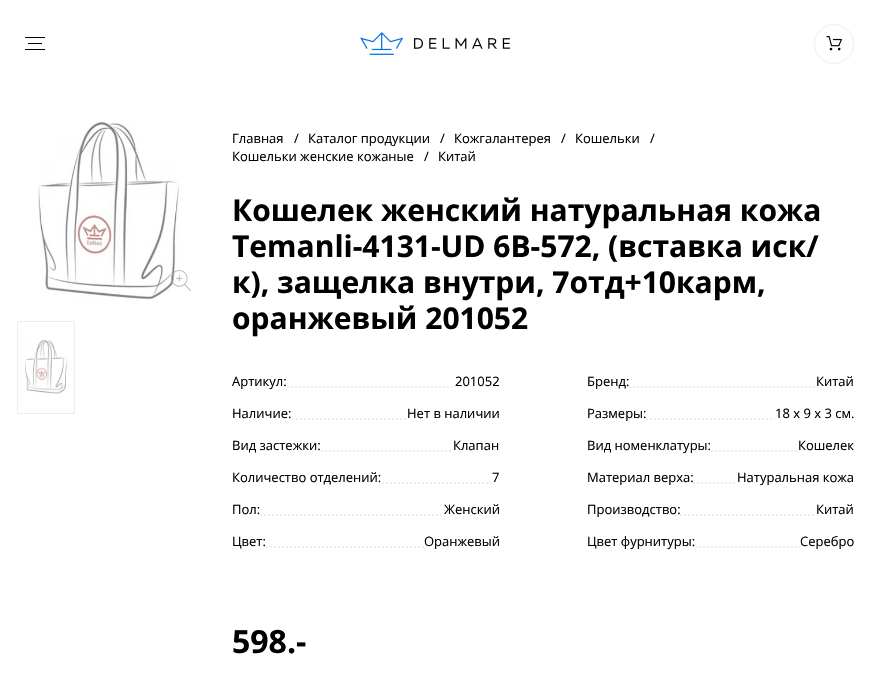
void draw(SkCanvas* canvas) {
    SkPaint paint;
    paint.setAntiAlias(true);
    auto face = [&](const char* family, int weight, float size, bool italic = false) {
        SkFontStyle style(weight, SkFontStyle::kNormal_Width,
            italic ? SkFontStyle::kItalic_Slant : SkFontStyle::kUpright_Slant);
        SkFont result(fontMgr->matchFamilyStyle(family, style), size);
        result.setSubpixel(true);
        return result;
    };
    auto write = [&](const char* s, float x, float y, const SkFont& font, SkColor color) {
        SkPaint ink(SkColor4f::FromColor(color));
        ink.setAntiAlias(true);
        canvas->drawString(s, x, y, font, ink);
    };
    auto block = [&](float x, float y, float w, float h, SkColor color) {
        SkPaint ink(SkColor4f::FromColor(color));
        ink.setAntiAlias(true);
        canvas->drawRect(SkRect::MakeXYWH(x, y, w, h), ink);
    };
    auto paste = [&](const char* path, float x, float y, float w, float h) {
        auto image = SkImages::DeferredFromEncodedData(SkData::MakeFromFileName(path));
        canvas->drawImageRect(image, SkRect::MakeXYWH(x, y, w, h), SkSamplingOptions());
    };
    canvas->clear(SK_ColorWHITE);
    block(28, 43, 14, 1, SK_ColorBLACK);
    block(25, 37, 20, 1, SK_ColorBLACK);
    block(25, 49, 20, 1, SK_ColorBLACK);
    paste("pic1.png", 360, 32, 43, 23);
    paste("pic2.png", 414, 38, 96, 11);
    paint.setStyle(SkPaint::kStroke_Style);
    paint.setStrokeWidth(1);
    paint.setColor(SkColorSetRGB(233, 240, 242));
    canvas->drawCircle(834, 44, 19.5f, paint);
    paste("pic3.png", 826, 36, 16, 15);
    paste("pic4.png", 38, 122, 141, 179);
    paste("pic5.png", 171, 270, 20, 21);
    paste("pic6.png", 24, 339, 44, 55);
    canvas->drawRect(SkRect::MakeXYWH(17.5f, 321.5f, 57, 92), paint);
    auto kFont1 = face("Open Sans", 400, 13);
    write("Главная", 232, 143, kFont1, SK_ColorBLACK);
    write("/", 294, 143, kFont1, SK_ColorBLACK);
    write("Каталог продукции", 308, 143, kFont1, SK_ColorBLACK);
    write("/", 440, 143, kFont1, SK_ColorBLACK);
    write("Кожгалантерея", 454, 143, kFont1, SK_ColorBLACK);
    write("/", 561, 143, kFont1, SK_ColorBLACK);
    write("Кошельки", 575, 143, kFont1, SK_ColorBLACK);
    write("/", 650, 143, kFont1, SK_ColorBLACK);
    write("Кошельки женские кожаные", 232, 161, kFont1, SK_ColorBLACK);
    write("/", 424, 161, kFont1, SK_ColorBLACK);
    write("Китай", 438, 161, kFont1, SK_ColorBLACK);
    auto kFont2 = face("Open Sans", 700, 30);
    write("Кошелек женский натуральная кожа", 232, 221, kFont2, SK_ColorBLACK);
    write("Temanli-4131-UD 6В-572, (вставка иск/", 232, 257, kFont2, SK_ColorBLACK);
    write("к), защелка внутри, 7отд+10карм,", 232, 293, kFont2, SK_ColorBLACK);
    write("оранжевый 201052", 232, 329, kFont2, SK_ColorBLACK);
    write("Артикул:", 232, 386, kFont1, SK_ColorBLACK);
    paint.setStrokeWidth(2);
    paint.setPathEffect(SkDashPathEffect::Make({{2, 2}}, 0));
    canvas->drawPath(SkPathBuilder().moveTo(287, 387).lineTo(455, 387).detach(), paint);
    paint.setPathEffect(nullptr);
    write("201052", 455, 386, kFont1, SK_ColorBLACK);
    write("Бренд:", 587, 386, kFont1, SK_ColorBLACK);
    paint.setPathEffect(SkDashPathEffect::Make({{2, 2}}, 0));
    canvas->drawPath(SkPathBuilder().moveTo(629, 387).lineTo(816, 387).detach(), paint);
    paint.setPathEffect(nullptr);
    write("Китай", 816, 386, kFont1, SK_ColorBLACK);
    write("Наличие:", 232, 418, kFont1, SK_ColorBLACK);
    paint.setPathEffect(SkDashPathEffect::Make({{2, 2}}, 0));
    canvas->drawPath(SkPathBuilder().moveTo(292, 419).lineTo(407, 419).detach(), paint);
    paint.setPathEffect(nullptr);
    write("Нет в наличии", 407, 418, kFont1, SK_ColorBLACK);
    write("Размеры:", 587, 418, kFont1, SK_ColorBLACK);
    paint.setPathEffect(SkDashPathEffect::Make({{2, 2}}, 0));
    canvas->drawPath(SkPathBuilder().moveTo(646, 419).lineTo(775, 419).detach(), paint);
    paint.setPathEffect(nullptr);
    write("18 x 9 x 3 см.", 775, 418, kFont1, SK_ColorBLACK);
    write("Вид застежки:", 232, 450, kFont1, SK_ColorBLACK);
    paint.setPathEffect(SkDashPathEffect::Make({{2, 2}}, 0));
    canvas->drawPath(SkPathBuilder().moveTo(321, 451).lineTo(453, 451).detach(), paint);
    paint.setPathEffect(nullptr);
    write("Клапан", 453, 450, kFont1, SK_ColorBLACK);
    write("Вид номенклатуры:", 587, 450, kFont1, SK_ColorBLACK);
    paint.setPathEffect(SkDashPathEffect::Make({{2, 2}}, 0));
    canvas->drawPath(SkPathBuilder().moveTo(711, 451).lineTo(798, 451).detach(), paint);
    paint.setPathEffect(nullptr);
    write("Кошелек", 798, 450, kFont1, SK_ColorBLACK);
    write("Количество отделений:", 232, 482, kFont1, SK_ColorBLACK);
    write("7", 492, 482, kFont1, SK_ColorBLACK);
    paint.setPathEffect(SkDashPathEffect::Make({{2, 2}}, 0));
    canvas->drawPath(SkPathBuilder().moveTo(382, 483).lineTo(492, 483).detach(), paint);
    paint.setPathEffect(nullptr);
    write("Материал верха:", 587, 482, kFont1, SK_ColorBLACK);
    paint.setPathEffect(SkDashPathEffect::Make({{2, 2}}, 0));
    canvas->drawPath(SkPathBuilder().moveTo(693, 483).lineTo(737, 483).detach(), paint);
    paint.setPathEffect(nullptr);
    write("Натуральная кожа", 737, 482, kFont1, SK_ColorBLACK);
    write("Пол:", 232, 514, kFont1, SK_ColorBLACK);
    paint.setPathEffect(SkDashPathEffect::Make({{2, 2}}, 0));
    canvas->drawPath(SkPathBuilder().moveTo(260, 515).lineTo(444, 515).detach(), paint);
    paint.setPathEffect(nullptr);
    write("Женский", 444, 514, kFont1, SK_ColorBLACK);
    write("Производство:", 587, 514, kFont1, SK_ColorBLACK);
    paint.setPathEffect(SkDashPathEffect::Make({{2, 2}}, 0));
    canvas->drawPath(SkPathBuilder().moveTo(680, 515).lineTo(816, 515).detach(), paint);
    paint.setPathEffect(nullptr);
    write("Китай", 816, 514, kFont1, SK_ColorBLACK);
    write("Цвет:", 232, 546, kFont1, SK_ColorBLACK);
    paint.setPathEffect(SkDashPathEffect::Make({{2, 2}}, 0));
    canvas->drawPath(SkPathBuilder().moveTo(266, 547).lineTo(424, 547).detach(), paint);
    paint.setPathEffect(nullptr);
    write("Оранжевый", 424, 546, kFont1, SK_ColorBLACK);
    write("Цвет фурнитуры:", 587, 546, kFont1, SK_ColorBLACK);
    paint.setPathEffect(SkDashPathEffect::Make({{2, 2}}, 0));
    canvas->drawPath(SkPathBuilder().moveTo(695, 547).lineTo(800, 547).detach(), paint);
    paint.setPathEffect(nullptr);
    write("Серебро", 800, 546, kFont1, SK_ColorBLACK);
    auto kFont3 = face("Open Sans", 700, 32);
    write("598.-", 232, 653, kFont3, SK_ColorBLACK);
}
